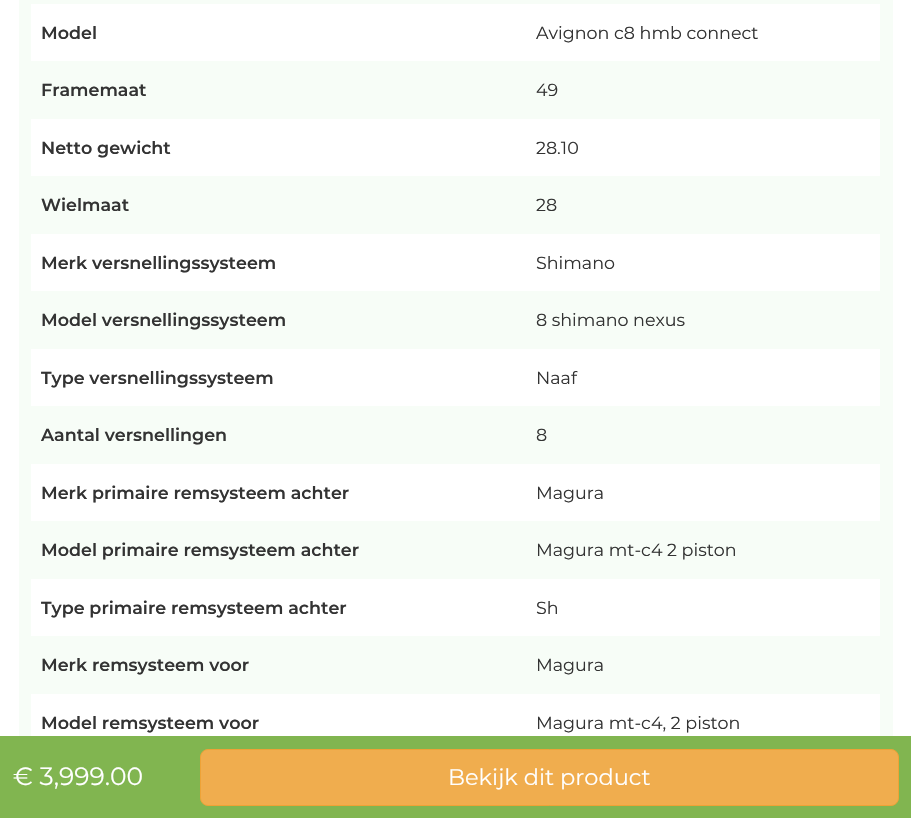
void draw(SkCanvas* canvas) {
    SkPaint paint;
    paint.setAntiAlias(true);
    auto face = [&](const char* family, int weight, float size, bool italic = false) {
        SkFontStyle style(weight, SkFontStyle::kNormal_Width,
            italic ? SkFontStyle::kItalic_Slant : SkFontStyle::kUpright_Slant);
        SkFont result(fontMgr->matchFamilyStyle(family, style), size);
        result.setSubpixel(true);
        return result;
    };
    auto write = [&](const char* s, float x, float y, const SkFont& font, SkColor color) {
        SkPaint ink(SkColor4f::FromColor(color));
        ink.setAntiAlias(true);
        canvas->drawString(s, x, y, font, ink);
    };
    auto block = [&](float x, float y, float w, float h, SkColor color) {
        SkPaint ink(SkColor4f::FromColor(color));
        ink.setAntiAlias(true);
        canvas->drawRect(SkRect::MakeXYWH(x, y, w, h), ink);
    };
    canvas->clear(SK_ColorWHITE);
    block(19, 0, 874, 736, SkColorSetRGB(247, 253, 247));
    block(31, 4, 849, 57, SK_ColorWHITE);
    auto kFont1 = face("Montserrat", 600, 17.5f);
    write("Model", 41, 39, kFont1, SkColorSetRGB(51, 51, 51));
    auto kFont2 = face("Montserrat", 400, 17.5f);
    write("Avignon c8 hmb connect", 536, 39, kFont2, SkColorSetRGB(51, 51, 51));
    write("Framemaat", 41, 96, kFont1, SkColorSetRGB(51, 51, 51));
    write("49", 536, 96, kFont2, SkColorSetRGB(51, 51, 51));
    block(31, 119, 849, 57, SK_ColorWHITE);
    write("Netto gewicht", 41, 154, kFont1, SkColorSetRGB(51, 51, 51));
    write("28.10", 536, 154, kFont2, SkColorSetRGB(51, 51, 51));
    write("Wielmaat", 41, 211, kFont1, SkColorSetRGB(51, 51, 51));
    write("28", 536, 211, kFont2, SkColorSetRGB(51, 51, 51));
    block(31, 234, 849, 57, SK_ColorWHITE);
    write("Merk versnellingssysteem", 41, 269, kFont1, SkColorSetRGB(51, 51, 51));
    write("Shimano", 536, 269, kFont2, SkColorSetRGB(51, 51, 51));
    write("Model versnellingssysteem", 41, 326, kFont1, SkColorSetRGB(51, 51, 51));
    write("8 shimano nexus", 536, 326, kFont2, SkColorSetRGB(51, 51, 51));
    block(31, 349, 849, 57, SK_ColorWHITE);
    write("Type versnellingssysteem", 41, 384, kFont1, SkColorSetRGB(51, 51, 51));
    write("Naaf", 536, 384, kFont2, SkColorSetRGB(51, 51, 51));
    write("Aantal versnellingen", 41, 441, kFont1, SkColorSetRGB(51, 51, 51));
    write("8", 536, 441, kFont2, SkColorSetRGB(51, 51, 51));
    block(31, 464, 849, 57, SK_ColorWHITE);
    write("Merk primaire remsysteem achter", 41, 499, kFont1, SkColorSetRGB(51, 51, 51));
    write("Magura", 536, 499, kFont2, SkColorSetRGB(51, 51, 51));
    write("Model primaire remsysteem achter", 41, 556, kFont1, SkColorSetRGB(51, 51, 51));
    write("Magura mt-c4 2 piston", 536, 556, kFont2, SkColorSetRGB(51, 51, 51));
    block(31, 579, 849, 57, SK_ColorWHITE);
    write("Type primaire remsysteem achter", 41, 614, kFont1, SkColorSetRGB(51, 51, 51));
    write("Sh", 536, 614, kFont2, SkColorSetRGB(51, 51, 51));
    write("Merk remsysteem voor", 41, 671, kFont1, SkColorSetRGB(51, 51, 51));
    write("Magura", 536, 671, kFont2, SkColorSetRGB(51, 51, 51));
    block(31, 694, 849, 42, SK_ColorWHITE);
    write("Model remsysteem voor", 41, 729, kFont1, SkColorSetRGB(51, 51, 51));
    write("Magura mt-c4, 2 piston", 536, 729, kFont2, SkColorSetRGB(51, 51, 51));
    block(0, 736, 911, 82, SkColorSetRGB(129, 181, 80));
    auto kFont3 = face("Montserrat", 400, 25);
    write("€ 3,999.00", 13, 785, kFont3, SK_ColorWHITE);
    paint.setColor(SkColorSetRGB(240, 173, 78));
    canvas->drawRoundRect(SkRect::MakeXYWH(200.5f, 749.5f, 698, 56), 7.5f, 7.5f, paint);
    paint.setStyle(SkPaint::kStroke_Style);
    paint.setStrokeWidth(1);
    paint.setColor(SkColorSetRGB(238, 162, 54));
    canvas->drawRoundRect(SkRect::MakeXYWH(200.5f, 749.5f, 698, 56), 7.5f, 7.5f, paint);
    auto kFont4 = face("Montserrat", 400, 22.5f);
    write("Bekijk dit product", 448, 785, kFont4, SK_ColorWHITE);
}
